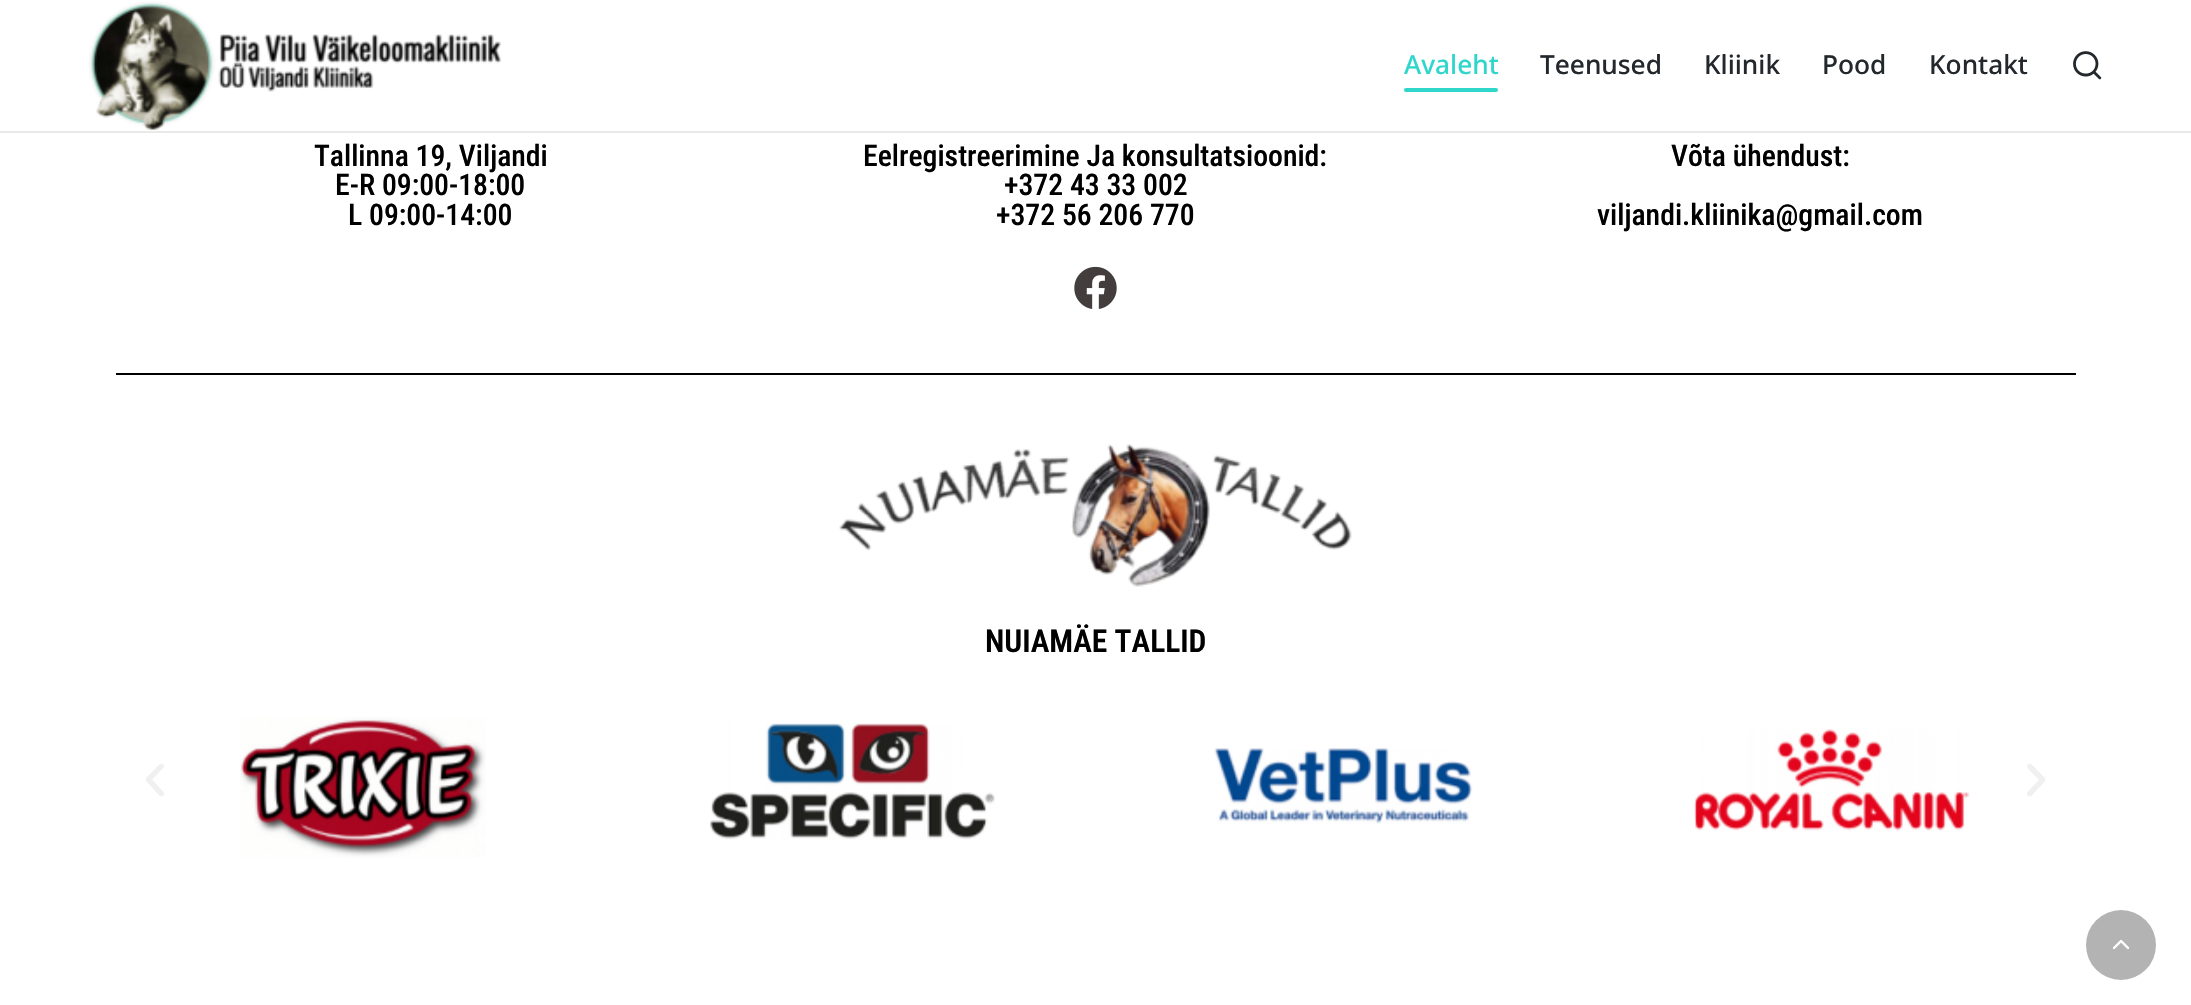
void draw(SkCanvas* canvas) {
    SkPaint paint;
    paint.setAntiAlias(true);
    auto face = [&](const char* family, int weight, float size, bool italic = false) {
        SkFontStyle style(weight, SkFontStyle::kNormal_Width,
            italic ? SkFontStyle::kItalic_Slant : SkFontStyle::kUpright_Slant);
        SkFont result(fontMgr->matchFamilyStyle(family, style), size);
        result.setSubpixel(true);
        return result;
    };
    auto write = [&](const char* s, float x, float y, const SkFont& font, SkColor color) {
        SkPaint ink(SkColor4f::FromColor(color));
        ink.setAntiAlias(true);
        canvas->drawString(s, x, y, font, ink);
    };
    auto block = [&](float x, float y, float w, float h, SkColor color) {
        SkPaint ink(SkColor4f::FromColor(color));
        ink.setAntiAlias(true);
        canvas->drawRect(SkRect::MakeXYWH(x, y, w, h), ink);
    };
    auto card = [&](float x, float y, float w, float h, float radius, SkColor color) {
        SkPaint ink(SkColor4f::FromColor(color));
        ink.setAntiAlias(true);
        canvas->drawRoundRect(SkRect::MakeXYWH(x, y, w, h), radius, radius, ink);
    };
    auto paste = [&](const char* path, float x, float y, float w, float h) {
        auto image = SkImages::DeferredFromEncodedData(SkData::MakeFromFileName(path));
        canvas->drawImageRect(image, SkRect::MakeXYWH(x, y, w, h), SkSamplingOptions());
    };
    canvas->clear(SK_ColorWHITE);
    block(0, 131, 2191, 2, SkColorSetRGB(233, 233, 233));
    paste("pic1.png", 88, 1, 413, 129);
    auto kFont1 = face("Noto Sans", 500, 26.25f);
    write("Avaleht", 1404, 74, kFont1, SkColorSetRGB(49, 214, 203));
    card(1404, 88, 94, 4, 2, SkColorSetRGB(49, 214, 203));
    write("Teenused", 1540, 74, kFont1, SkColorSetRGB(35, 40, 45));
    write("Kliinik", 1704, 74, kFont1, SkColorSetRGB(35, 40, 45));
    write("Pood", 1822, 74, kFont1, SkColorSetRGB(35, 40, 45));
    write("Kontakt", 1929, 74, kFont1, SkColorSetRGB(35, 40, 45));
    paste("pic2.png", 2073, 51, 29, 29);
    auto kFont2 = face("Roboto Condensed", 500, 29.75f);
    write("Tallinna 19, Viljandi", 314, 166, kFont2, SK_ColorBLACK);
    write("E-R 09:00-18:00", 335, 195, kFont2, SK_ColorBLACK);
    write("L 09:00-14:00", 348, 225, kFont2, SK_ColorBLACK);
    write("Eelregistreerimine Ja konsultatsioonid:", 863, 166, kFont2, SK_ColorBLACK);
    write("+372 43 33 002", 1004, 195, kFont2, SK_ColorBLACK);
    write("+372 56 206 770", 996, 225, kFont2, SK_ColorBLACK);
    paste("pic3.png", 1074, 266, 43, 43);
    write("Võta ühendust:", 1671, 166, kFont2, SK_ColorBLACK);
    write("viljandi.kliinika@gmail.com", 1597, 225, kFont2, SK_ColorBLACK);
    block(116, 373, 1960, 2, SK_ColorBLACK);
    paste("pic4.png", 839, 444, 513, 143);
    auto kFont3 = face("Roboto Condensed", 600, 31.5f);
    write("NUIAMÄE TALLID", 985, 652, kFont3, SK_ColorBLACK);
    paste("pic5.png", 146, 763, 18, 34);
    paste("pic6.png", 240, 717, 246, 141);
    paste("pic7.png", 710, 723, 285, 117);
    paste("pic8.png", 1214, 748, 259, 76);
    paste("pic9.png", 1694, 729, 276, 102);
    paste("pic10.png", 2027, 763, 19, 34);
    paint.setColor(SkColorSetRGB(179, 179, 179));
    canvas->drawCircle(2121, 945, 35, paint);
    paste("pic11.png", 2112, 939, 18, 11);
}
